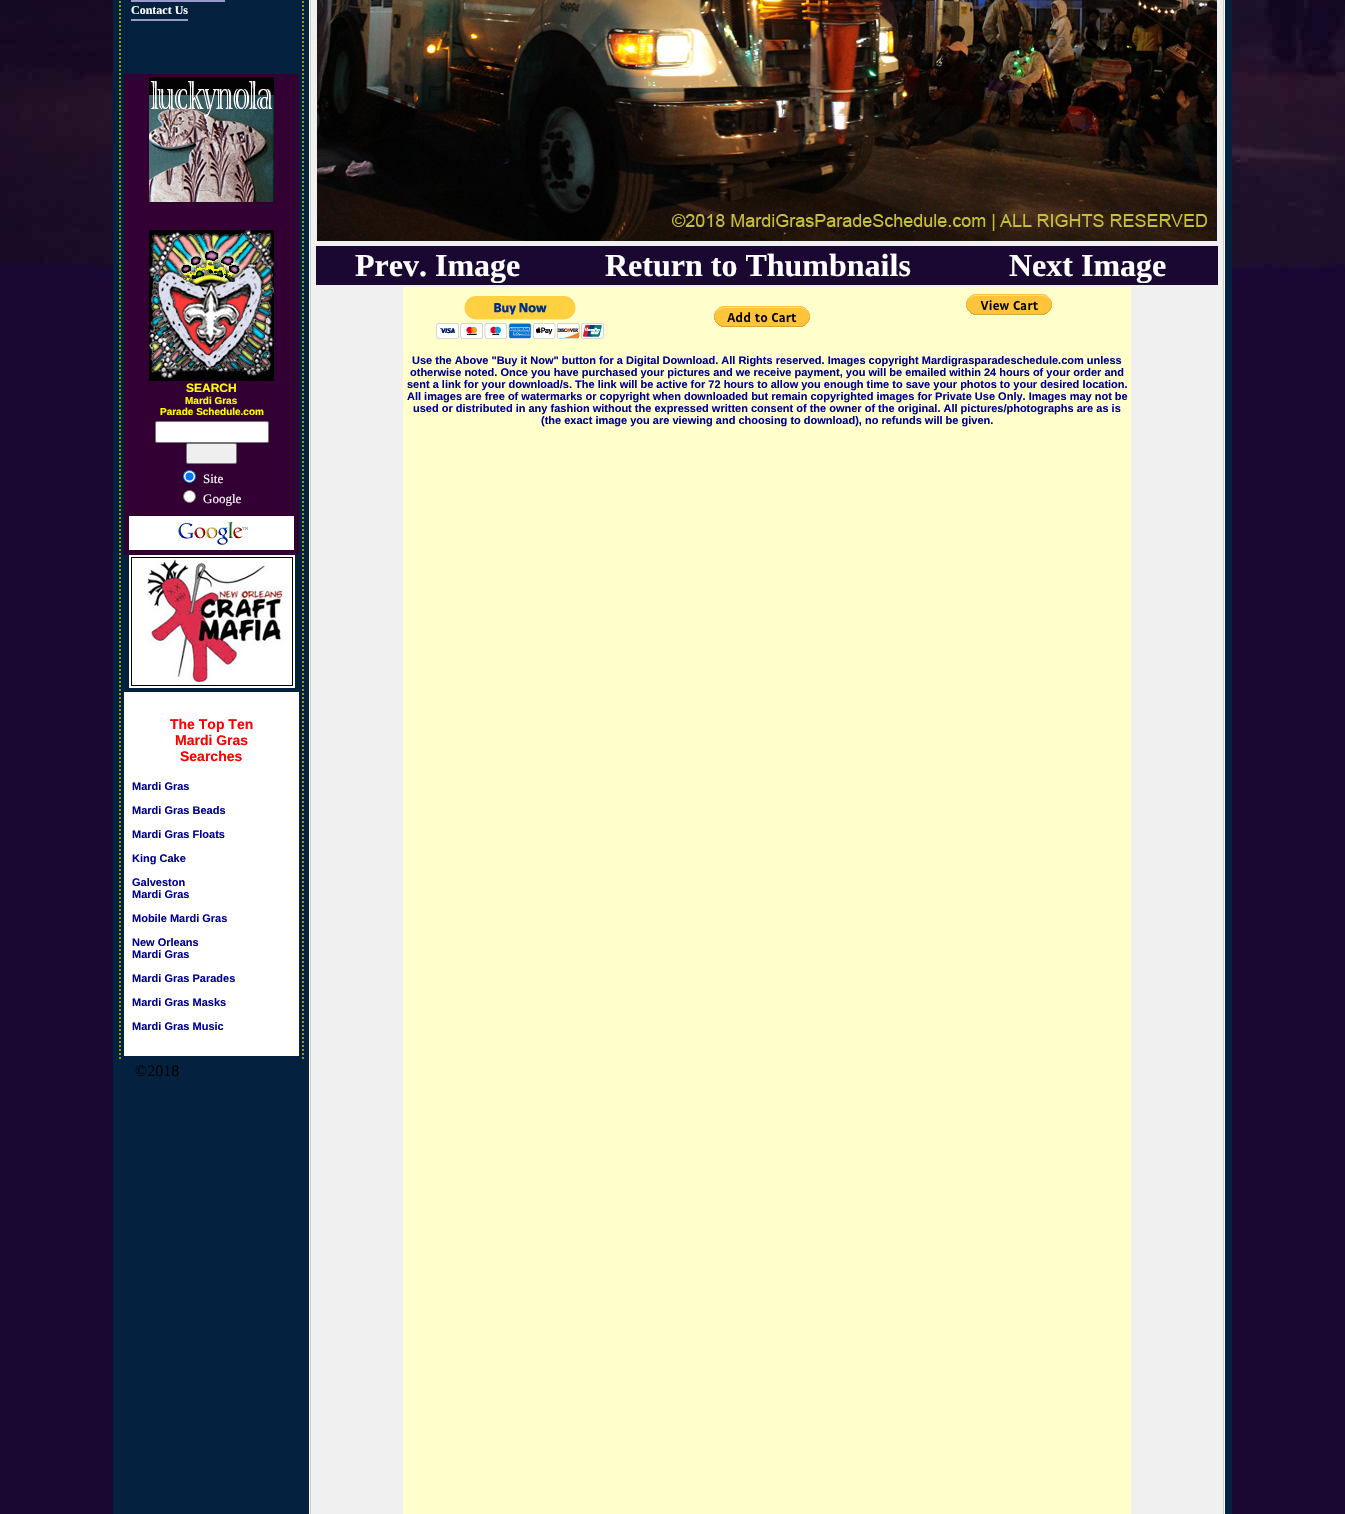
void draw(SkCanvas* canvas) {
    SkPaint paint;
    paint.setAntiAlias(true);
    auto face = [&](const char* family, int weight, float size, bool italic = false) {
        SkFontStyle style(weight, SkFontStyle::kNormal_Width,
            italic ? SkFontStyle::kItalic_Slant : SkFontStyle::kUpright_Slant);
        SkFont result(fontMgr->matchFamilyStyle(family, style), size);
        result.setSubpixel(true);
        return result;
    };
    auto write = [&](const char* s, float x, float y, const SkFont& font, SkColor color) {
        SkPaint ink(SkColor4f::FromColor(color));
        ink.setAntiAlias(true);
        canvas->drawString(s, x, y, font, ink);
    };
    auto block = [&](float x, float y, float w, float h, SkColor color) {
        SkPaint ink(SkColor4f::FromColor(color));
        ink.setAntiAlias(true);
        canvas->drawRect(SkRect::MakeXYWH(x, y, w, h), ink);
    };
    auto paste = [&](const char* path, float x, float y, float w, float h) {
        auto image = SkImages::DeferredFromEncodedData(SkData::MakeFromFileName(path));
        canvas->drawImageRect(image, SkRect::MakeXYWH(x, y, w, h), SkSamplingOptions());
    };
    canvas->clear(SkColorSetRGB(26, 8, 51));
    paste("pic1.png", 0, 0, 1345, 280);
    block(113, 0, 1119, 1514, SkColorSetRGB(4, 34, 64));
    paint.setStyle(SkPaint::kStroke_Style);
    paint.setStrokeWidth(2);
    paint.setColor(SkColorSetRGB(153, 153, 0));
    paint.setPathEffect(SkDashPathEffect::Make({{2, 2}}, 0));
    canvas->drawPath(SkPathBuilder().moveTo(303, -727).lineTo(303, 1059).detach(), paint);
    paint.setPathEffect(nullptr);
    paint.setPathEffect(SkDashPathEffect::Make({{2, 2}}, 0));
    canvas->drawPath(SkPathBuilder().moveTo(120, -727).lineTo(120, 1059).detach(), paint);
    paint.setPathEffect(nullptr);
    block(131, 0, 94, 2, SkColorSetRGB(153, 153, 204));
    auto kFont1 = face("Liberation Serif", 700, 12);
    write("Contact Us", 131, 14, kFont1, SK_ColorWHITE);
    block(131, 19, 57, 2, SkColorSetRGB(153, 153, 204));
    block(124, 74, 175, 481, SkColorSetRGB(51, 0, 51));
    paste("pic2.png", 149, 77, 125, 125);
    paste("pic3.png", 149, 230, 125, 151);
    auto kFont2 = face("Liberation Sans", 700, 12);
    write("SEARCH", 186, 392, kFont2, SkColorSetRGB(255, 255, 0));
    auto kFont3 = face("Liberation Sans", 700, 10);
    write("Mardi Gras", 185, 404, kFont3, SkColorSetRGB(255, 255, 0));
    write("Parade Schedule.com", 160, 415, kFont3, SkColorSetRGB(255, 255, 0));
    paint.setStyle(SkPaint::kFill_Style);
    paint.setColor(SK_ColorWHITE);
    canvas->drawRoundRect(SkRect::MakeXYWH(155.5f, 421.5f, 113, 21), 1.5f, 1.5f, paint);
    paint.setStyle(SkPaint::kStroke_Style);
    paint.setStrokeWidth(1);
    paint.setColor(SkColorSetRGB(118, 118, 118));
    canvas->drawRoundRect(SkRect::MakeXYWH(155.5f, 421.5f, 113, 21), 1.5f, 1.5f, paint);
    paint.setStyle(SkPaint::kFill_Style);
    paint.setColor(SkColorSetRGB(239, 239, 239));
    canvas->drawRoundRect(SkRect::MakeXYWH(186.5f, 443.5f, 50, 20), 1.5f, 1.5f, paint);
    paint.setStyle(SkPaint::kStroke_Style);
    paint.setColor(SkColorSetRGB(118, 118, 118));
    canvas->drawRoundRect(SkRect::MakeXYWH(186.5f, 443.5f, 50, 20), 1.5f, 1.5f, paint);
    paint.setStyle(SkPaint::kFill_Style);
    paint.setColor(SK_ColorWHITE);
    canvas->drawCircle(189.5f, 476.5f, 6, paint);
    paint.setStyle(SkPaint::kStroke_Style);
    paint.setColor(SkColorSetRGB(0, 117, 255));
    canvas->drawCircle(189.5f, 476.5f, 6, paint);
    paint.setStyle(SkPaint::kFill_Style);
    canvas->drawCircle(189.5f, 476.5f, 4, paint);
    auto kFont4 = face("Liberation Serif", 400, 13);
    write("Site", 203, 483, kFont4, SK_ColorWHITE);
    paint.setColor(SK_ColorWHITE);
    canvas->drawCircle(189.5f, 496.5f, 6, paint);
    paint.setStyle(SkPaint::kStroke_Style);
    paint.setColor(SkColorSetRGB(118, 118, 118));
    canvas->drawCircle(189.5f, 496.5f, 6, paint);
    write("Google", 203, 503, kFont4, SK_ColorWHITE);
    block(129, 516, 165, 34, SK_ColorWHITE);
    paste("pic4.png", 178, 522, 70, 23);
    block(129, 555, 166, 133, SK_ColorWHITE);
    block(131, 557, 162, 129, SK_ColorBLACK);
    paste("pic5.png", 132, 558, 160, 127);
    block(124, 692, 175, 364, SK_ColorWHITE);
    auto kFont5 = face("Liberation Sans", 700, 14);
    write("The Top Ten", 170, 729, kFont5, SkColorSetRGB(255, 0, 0));
    write("Mardi Gras", 175, 745, kFont5, SkColorSetRGB(255, 0, 0));
    write("Searches", 180, 761, kFont5, SkColorSetRGB(255, 0, 0));
    auto kFont6 = face("Liberation Sans", 700, 11);
    write("Mardi Gras", 132, 790, kFont6, SkColorSetRGB(0, 0, 153));
    write("Mardi Gras Beads", 132, 814, kFont6, SkColorSetRGB(0, 0, 153));
    write("Mardi Gras Floats", 132, 838, kFont6, SkColorSetRGB(0, 0, 153));
    write("King Cake", 132, 862, kFont6, SkColorSetRGB(0, 0, 153));
    write("Galveston", 132, 886, kFont6, SkColorSetRGB(0, 0, 153));
    write("Mardi Gras", 132, 898, kFont6, SkColorSetRGB(0, 0, 153));
    write("Mobile Mardi Gras", 132, 922, kFont6, SkColorSetRGB(0, 0, 153));
    write("New Orleans", 132, 946, kFont6, SkColorSetRGB(0, 0, 153));
    write("Mardi Gras", 132, 958, kFont6, SkColorSetRGB(0, 0, 153));
    write("Mardi Gras Parades", 132, 982, kFont6, SkColorSetRGB(0, 0, 153));
    write("Mardi Gras Masks", 132, 1006, kFont6, SkColorSetRGB(0, 0, 153));
    write("Mardi Gras Music", 132, 1030, kFont6, SkColorSetRGB(0, 0, 153));
    auto kFont7 = face("Liberation Serif", 400, 16);
    write("©2018", 135, 1076, kFont7, SK_ColorBLACK);
    block(309, 0, 916, 1514, SK_ColorWHITE);
    paint.setStyle(SkPaint::kFill_Style);
    paint.setColor(SkColorSetRGB(240, 240, 240));
    canvas->drawRect(SkRect::MakeXYWH(310.5f, -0.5f, 913, 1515), paint);
    paint.setStyle(SkPaint::kStroke_Style);
    paint.setColor(SkColorSetRGB(204, 204, 204));
    canvas->drawRect(SkRect::MakeXYWH(310.5f, -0.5f, 913, 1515), paint);
    paste("pic6.png", 317, 0, 900, 241);
    block(316, 246, 902, 39, SkColorSetRGB(26, 8, 51));
    auto kFont8 = face("Liberation Serif", 700, 32);
    write("Prev. Image", 355, 276, kFont8, SK_ColorWHITE);
    write("Return to Thumbnails", 605, 276, kFont8, SK_ColorWHITE);
    write("Next Image", 1009, 276, kFont8, SK_ColorWHITE);
    block(403, 287, 728, 1227, SkColorSetRGB(255, 255, 204));
    paste("pic7.png", 436, 296, 168, 43);
    paste("pic8.png", 714, 306, 96, 21);
    paste("pic9.png", 966, 294, 86, 21);
    write("Use the Above \"Buy it Now\" button for a Digital Download. All Rights reserved. Images copyright Mardigrasparadeschedule.com unless", 412, 364, kFont6, SkColorSetRGB(0, 0, 153));
    write("otherwise noted. Once you have purchased your pictures and we receive payment, you will be emailed within 24 hours of your order and", 410, 376, kFont6, SkColorSetRGB(0, 0, 153));
    write("sent a link for your download/s. The link will be active for 72 hours to allow you enough time to save your photos to your desired location.", 407, 388, kFont6, SkColorSetRGB(0, 0, 153));
    write("All images are free of watermarks or copyright when downloaded but remain copyrighted images for Private Use Only. Images may not be", 407, 400, kFont6, SkColorSetRGB(0, 0, 153));
    write("used or distributed in any fashion without the expressed written consent of the owner of the original. All pictures/photographs are as is", 413, 412, kFont6, SkColorSetRGB(0, 0, 153));
    write("(the exact image you are viewing and choosing to download), no refunds will be given.", 541, 424, kFont6, SkColorSetRGB(0, 0, 153));
}
